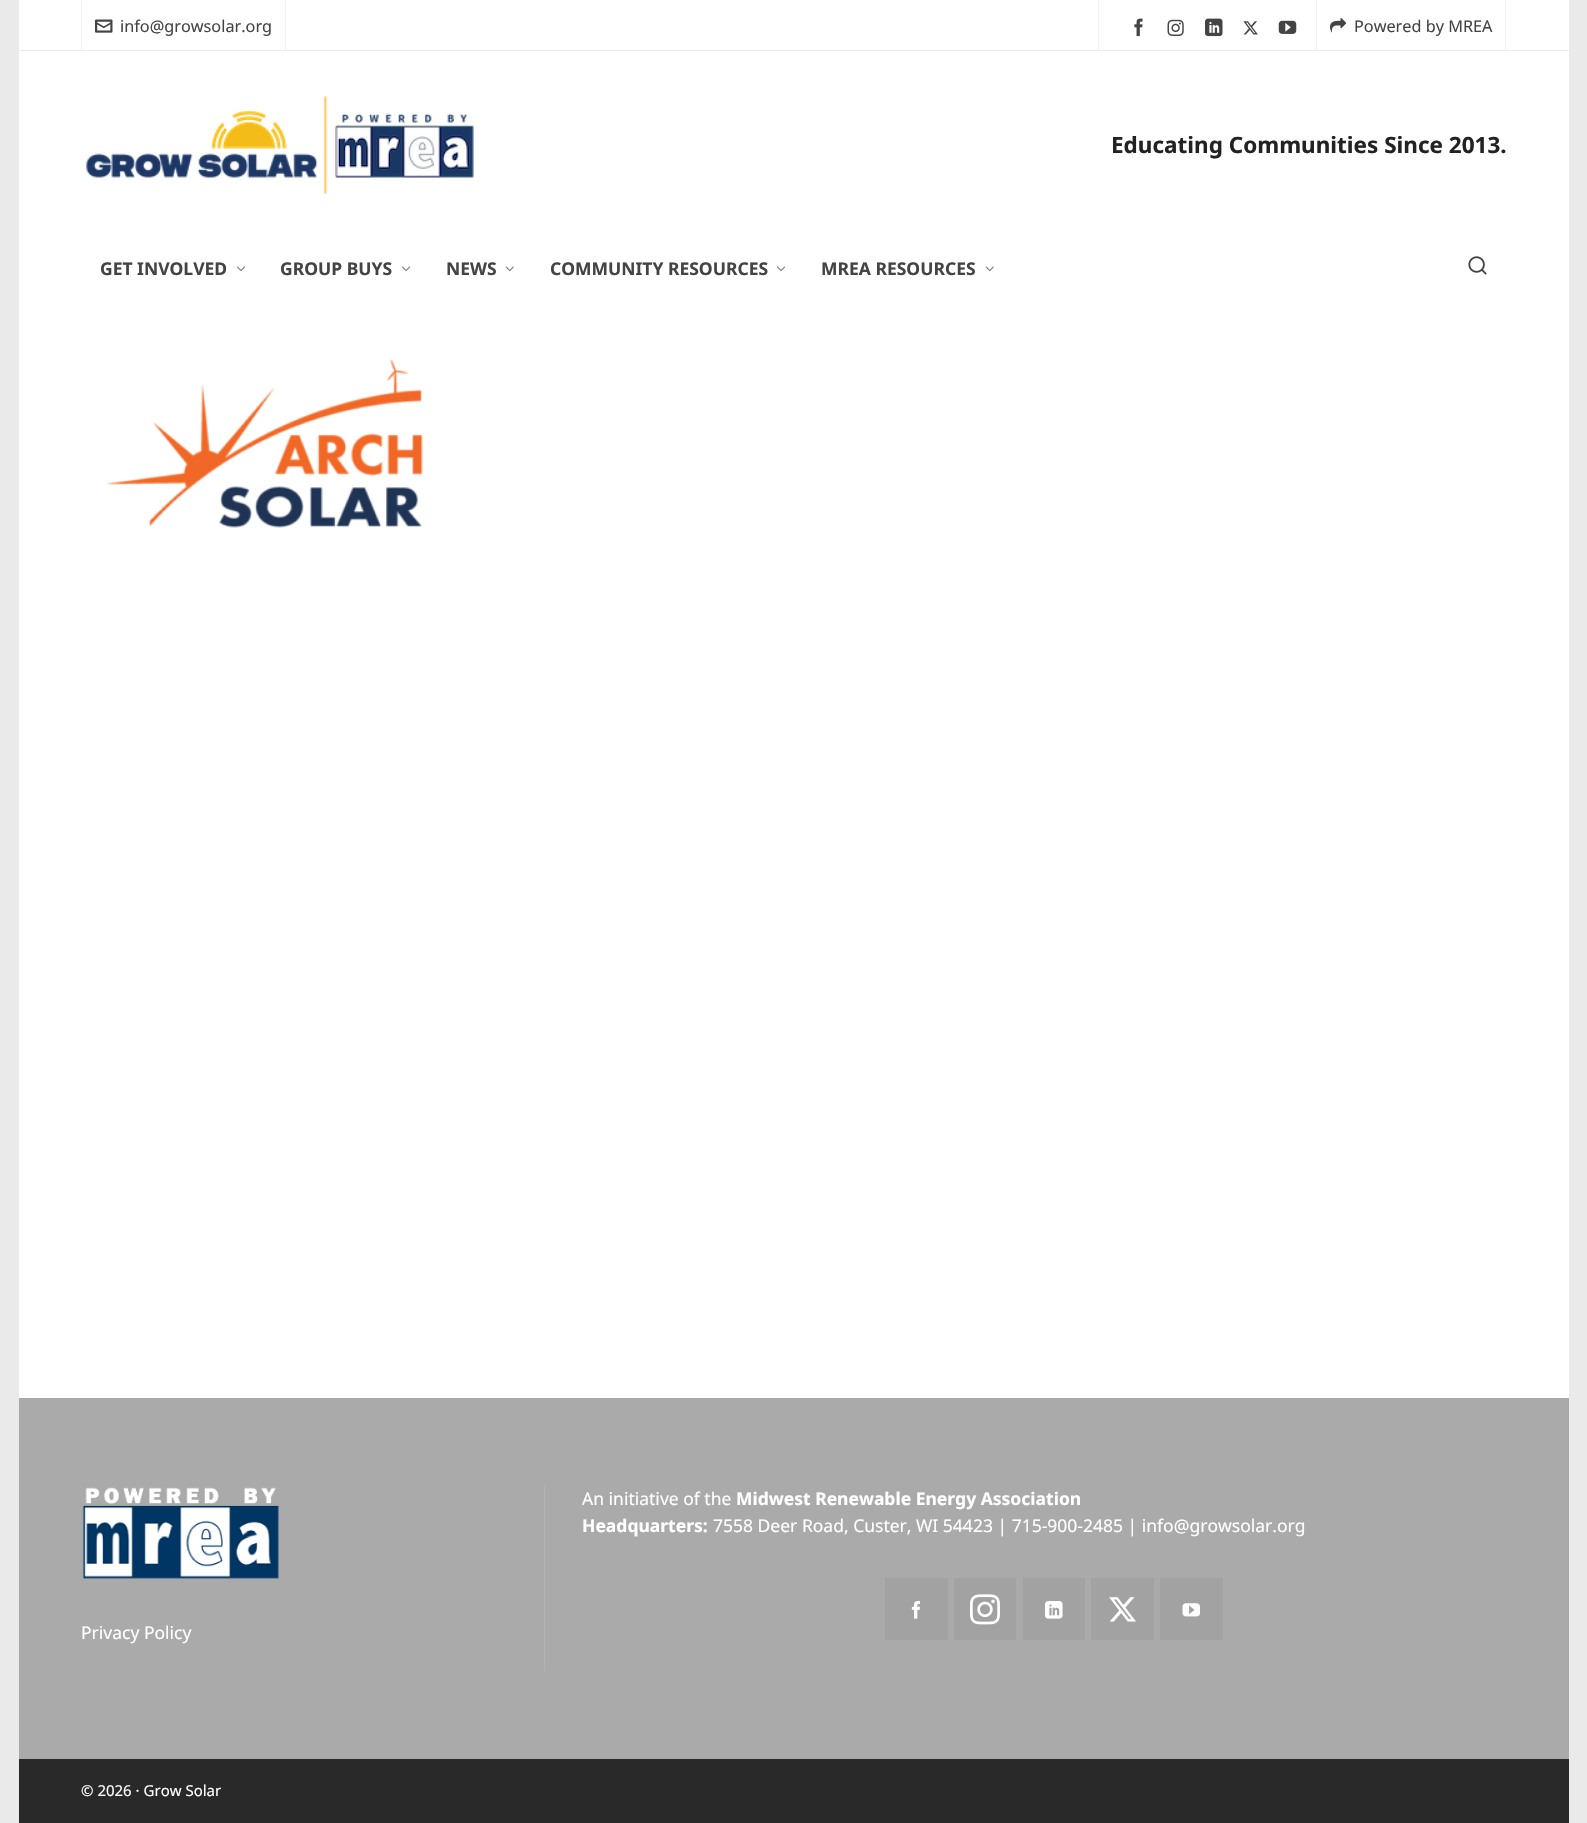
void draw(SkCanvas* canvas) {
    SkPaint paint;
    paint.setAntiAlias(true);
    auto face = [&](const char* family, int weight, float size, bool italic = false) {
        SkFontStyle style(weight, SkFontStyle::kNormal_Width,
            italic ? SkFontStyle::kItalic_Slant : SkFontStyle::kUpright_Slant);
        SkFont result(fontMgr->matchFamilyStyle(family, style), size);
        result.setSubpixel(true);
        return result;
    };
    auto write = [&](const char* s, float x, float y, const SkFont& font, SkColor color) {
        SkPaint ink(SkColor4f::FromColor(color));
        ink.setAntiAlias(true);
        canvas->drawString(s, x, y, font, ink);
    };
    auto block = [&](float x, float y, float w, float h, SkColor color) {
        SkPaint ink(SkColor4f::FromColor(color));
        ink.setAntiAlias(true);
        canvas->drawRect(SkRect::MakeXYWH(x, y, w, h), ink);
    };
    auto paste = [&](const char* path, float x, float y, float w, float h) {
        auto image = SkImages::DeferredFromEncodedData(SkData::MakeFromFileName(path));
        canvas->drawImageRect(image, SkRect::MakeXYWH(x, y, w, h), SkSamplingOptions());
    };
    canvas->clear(SkColorSetRGB(234, 234, 234));
    block(19, 0, 1550, 1398, SK_ColorWHITE);
    block(19, 50, 1550, 1, SkColorSetRGB(235, 235, 235));
    block(285, 0, 1, 51, SkColorSetRGB(240, 243, 245));
    block(81, 0, 1, 51, SkColorSetRGB(240, 243, 245));
    paste("pic1.png", 95, 19, 18, 14);
    auto kFont1 = face("Noto Sans", 400, 16.25f);
    write("info@growsolar.org", 120, 32, kFont1, SkColorSetRGB(68, 68, 68));
    block(1316, 0, 1, 51, SkColorSetRGB(240, 243, 245));
    block(1098, 0, 1, 51, SkColorSetRGB(240, 243, 245));
    paste("pic2.png", 1134, 18, 9, 19);
    paste("pic3.png", 1167, 19, 17, 17);
    paste("pic4.png", 1205, 18, 18, 19);
    paste("pic5.png", 1243, 21, 15, 14);
    paste("pic6.png", 1278, 20, 19, 14);
    block(1505, 0, 1, 51, SkColorSetRGB(240, 243, 245));
    paste("pic7.png", 1330, 18, 17, 15);
    write("Powered by MREA", 1354, 32, kFont1, SkColorSetRGB(68, 68, 68));
    paste("pic8.png", 86, 96, 388, 98);
    auto kFont2 = face("Noto Sans", 700, 22.5f);
    write("Educating Communities Since 2013.", 1111, 153, kFont2, SkColorSetRGB(34, 34, 34));
    auto kFont3 = face("Noto Sans", 700, 17.5f);
    write("GET INVOLVED", 100, 275, kFont3, SkColorSetRGB(68, 68, 68));
    paste("pic9.png", 237, 266, 9, 6);
    write("GROUP BUYS", 280, 275, kFont3, SkColorSetRGB(68, 68, 68));
    paste("pic9.png", 402, 266, 9, 6);
    write("NEWS", 446, 275, kFont3, SkColorSetRGB(68, 68, 68));
    paste("pic10.png", 505, 266, 9, 6);
    write("COMMUNITY RESOURCES", 550, 275, kFont3, SkColorSetRGB(68, 68, 68));
    paste("pic9.png", 777, 266, 9, 6);
    write("MREA RESOURCES", 821, 275, kFont3, SkColorSetRGB(68, 68, 68));
    paste("pic10.png", 985, 266, 9, 6);
    paste("pic11.png", 1468, 256, 19, 19);
    paste("pic12.png", 106, 359, 317, 169);
    block(19, 1398, 1550, 361, SkColorSetRGB(170, 170, 170));
    block(544, 1485, 1, 186, SkColorSetRGB(179, 179, 179));
    auto kFont4 = face("Noto Sans", 400, 17.5f);
    write("An initiative of the", 582, 1505, kFont4, SK_ColorWHITE);
    write("Midwest Renewable Energy Association", 736, 1505, kFont3, SK_ColorWHITE);
    write("Headquarters:", 582, 1532, kFont3, SK_ColorWHITE);
    write("7558 Deer Road, Custer, WI 54423 | 715-900-2485 | info@growsolar.org", 713, 1532, kFont4, SK_ColorWHITE);
    block(885, 1578, 63, 62, SkColorSetRGB(162, 162, 162));
    paste("pic13.png", 911, 1601, 9, 18);
    block(954, 1578, 62, 62, SkColorSetRGB(162, 162, 162));
    paste("pic14.png", 970, 1594, 30, 31);
    block(1023, 1578, 62, 62, SkColorSetRGB(162, 162, 162));
    paste("pic15.png", 1045, 1601, 18, 18);
    block(1091, 1578, 63, 62, SkColorSetRGB(162, 162, 162));
    paste("pic16.png", 1109, 1597, 27, 25);
    block(1160, 1578, 63, 62, SkColorSetRGB(162, 162, 162));
    paste("pic17.png", 1182, 1603, 18, 14);
    paste("pic18.png", 82, 1487, 197, 92);
    write("Privacy Policy", 81, 1639, kFont4, SK_ColorWHITE);
    block(19, 1759, 1550, 64, SkColorSetRGB(41, 41, 41));
    auto kFont5 = face("Noto Sans", 400, 15);
    write("© 2026 · Grow Solar", 81, 1796, kFont5, SK_ColorWHITE);
}
